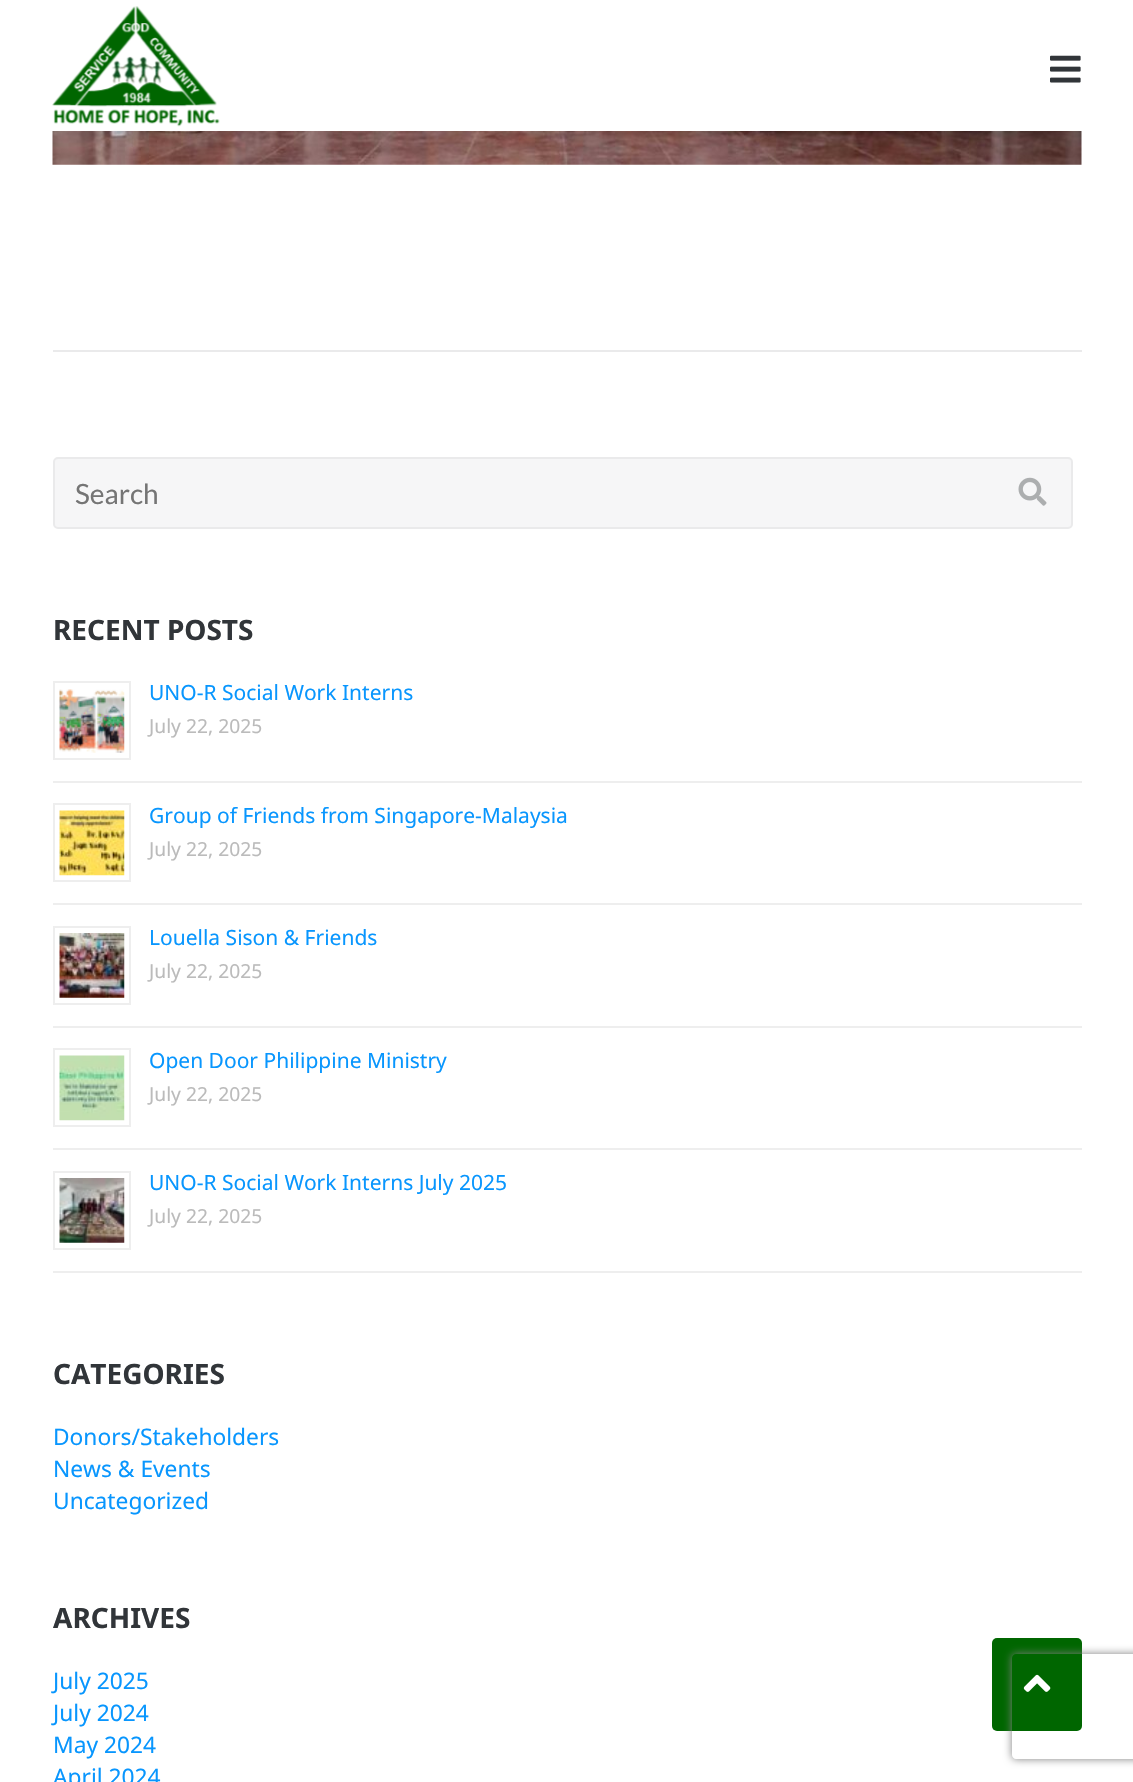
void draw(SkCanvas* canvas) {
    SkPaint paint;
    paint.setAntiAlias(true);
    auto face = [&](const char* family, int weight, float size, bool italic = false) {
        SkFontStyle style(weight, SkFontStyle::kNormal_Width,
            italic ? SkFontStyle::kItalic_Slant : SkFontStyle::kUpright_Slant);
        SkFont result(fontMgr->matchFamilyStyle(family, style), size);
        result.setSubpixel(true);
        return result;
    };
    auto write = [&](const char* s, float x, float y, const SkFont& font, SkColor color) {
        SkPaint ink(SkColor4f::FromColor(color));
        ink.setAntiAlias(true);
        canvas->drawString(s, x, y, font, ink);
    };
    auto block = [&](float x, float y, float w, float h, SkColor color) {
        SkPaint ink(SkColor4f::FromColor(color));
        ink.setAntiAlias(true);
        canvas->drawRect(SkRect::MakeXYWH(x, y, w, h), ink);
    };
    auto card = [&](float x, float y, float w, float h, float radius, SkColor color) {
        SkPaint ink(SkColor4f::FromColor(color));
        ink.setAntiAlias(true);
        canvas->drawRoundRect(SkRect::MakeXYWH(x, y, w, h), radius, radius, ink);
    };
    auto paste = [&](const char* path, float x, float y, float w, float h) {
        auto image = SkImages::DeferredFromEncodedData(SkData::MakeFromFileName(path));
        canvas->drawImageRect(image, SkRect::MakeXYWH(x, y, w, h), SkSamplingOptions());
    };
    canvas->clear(SK_ColorWHITE);
    paste("pic1.png", 52, 6, 168, 121);
    paste("pic2.png", 1050, 55, 31, 28);
    paste("pic3.png", 52, 131, 1030, 34);
    block(53, 350, 1029, 2, SkColorSetRGB(234, 234, 235));
    paint.setColor(SkColorSetRGB(246, 246, 247));
    canvas->drawRoundRect(SkRect::MakeXYWH(54, 458, 1018, 70), 4, 4, paint);
    paint.setStyle(SkPaint::kStroke_Style);
    paint.setStrokeWidth(2);
    paint.setColor(SkColorSetRGB(234, 234, 235));
    canvas->drawRoundRect(SkRect::MakeXYWH(54, 458, 1018, 70), 4, 4, paint);
    auto kFont1 = face("Lato", 400, 28);
    write("Search", 75, 504, kFont1, SkColorSetRGB(117, 117, 117));
    paste("pic4.png", 1018, 477, 29, 29);
    auto kFont2 = face("Noto Sans", 700, 28);
    write("RECENT POSTS", 53, 640, kFont2, SkColorSetRGB(49, 53, 57));
    block(53, 781, 1029, 2, SkColorSetRGB(238, 238, 238));
    paint.setColor(SkColorSetRGB(238, 238, 238));
    canvas->drawRect(SkRect::MakeXYWH(54, 682, 76, 77), paint);
    paste("pic5.png", 59, 689, 66, 64);
    auto kFont3 = face("Noto Sans", 400, 21);
    write("UNO-R Social Work Interns", 149, 700, kFont3, SkColorSetRGB(8, 150, 254));
    auto kFont4 = face("Noto Sans", 400, 19.25f);
    write("July 22, 2025", 149, 733, kFont4, SkColorSetRGB(187, 187, 187));
    block(53, 903, 1029, 2, SkColorSetRGB(238, 238, 238));
    canvas->drawRect(SkRect::MakeXYWH(54, 804, 76, 77), paint);
    paste("pic6.png", 59, 810, 66, 66);
    write("Group of Friends from Singapore-Malaysia", 149, 823, kFont3, SkColorSetRGB(8, 150, 254));
    write("July 22, 2025", 149, 856, kFont4, SkColorSetRGB(187, 187, 187));
    block(53, 1026, 1029, 2, SkColorSetRGB(238, 238, 238));
    canvas->drawRect(SkRect::MakeXYWH(54, 927, 76, 77), paint);
    paste("pic7.png", 59, 933, 66, 65);
    write("Louella Sison & Friends", 149, 945, kFont3, SkColorSetRGB(8, 150, 254));
    write("July 22, 2025", 149, 978, kFont4, SkColorSetRGB(187, 187, 187));
    block(53, 1148, 1029, 2, SkColorSetRGB(238, 238, 238));
    canvas->drawRect(SkRect::MakeXYWH(54, 1049, 76, 77), paint);
    paste("pic8.png", 59, 1055, 66, 66);
    write("Open Door Philippine Ministry", 149, 1068, kFont3, SkColorSetRGB(8, 150, 254));
    write("July 22, 2025", 149, 1101, kFont4, SkColorSetRGB(187, 187, 187));
    block(53, 1271, 1029, 2, SkColorSetRGB(238, 238, 238));
    canvas->drawRect(SkRect::MakeXYWH(54, 1172, 76, 77), paint);
    paste("pic9.png", 59, 1178, 66, 65);
    write("UNO-R Social Work Interns July 2025", 149, 1190, kFont3, SkColorSetRGB(8, 150, 254));
    write("July 22, 2025", 149, 1223, kFont4, SkColorSetRGB(187, 187, 187));
    write("CATEGORIES", 53, 1384, kFont2, SkColorSetRGB(49, 53, 57));
    auto kFont5 = face("Noto Sans", 400, 22.75f);
    write("Donors/Stakeholders", 53, 1445, kFont5, SkColorSetRGB(8, 150, 254));
    write("News & Events", 53, 1477, kFont5, SkColorSetRGB(8, 150, 254));
    write("Uncategorized", 53, 1509, kFont5, SkColorSetRGB(8, 150, 254));
    write("ARCHIVES", 53, 1628, kFont2, SkColorSetRGB(49, 53, 57));
    write("July 2025", 53, 1689, kFont5, SkColorSetRGB(8, 150, 254));
    write("July 2024", 53, 1721, kFont5, SkColorSetRGB(8, 150, 254));
    write("May 2024", 53, 1753, kFont5, SkColorSetRGB(8, 150, 254));
    write("April 2024", 53, 1785, kFont5, SkColorSetRGB(8, 150, 254));
    card(992, 1638, 90, 93, 5, SkColorSetRGB(0, 102, 0));
    paste("pic10.png", 1023, 1674, 28, 18);
    canvas->save();
    canvas->clipPath(SkPathBuilder(SkPathFillType::kEvenOdd).moveTo(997, 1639).lineTo(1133, 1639).lineTo(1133, 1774).lineTo(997, 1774).close().moveTo(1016, 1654).lineTo(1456, 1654).cubicTo(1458, 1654, 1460, 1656, 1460, 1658).lineTo(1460, 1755).cubicTo(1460, 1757, 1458, 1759, 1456, 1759).lineTo(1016, 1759).cubicTo(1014, 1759, 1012, 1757, 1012, 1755).lineTo(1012, 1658).cubicTo(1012, 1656, 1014, 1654, 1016, 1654).close().detach(), true);
    paint.setStyle(SkPaint::kFill_Style);
    paint.setColor(SkColorSetRGB(128, 128, 128));
    paint.setMaskFilter(SkMaskFilter::MakeBlur(kNormal_SkBlurStyle, 4.5f));
    canvas->drawRoundRect(SkRect::MakeXYWH(1012, 1654, 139, 105), 4, 4, paint);
    paint.setMaskFilter(nullptr);
    canvas->restore();
}
